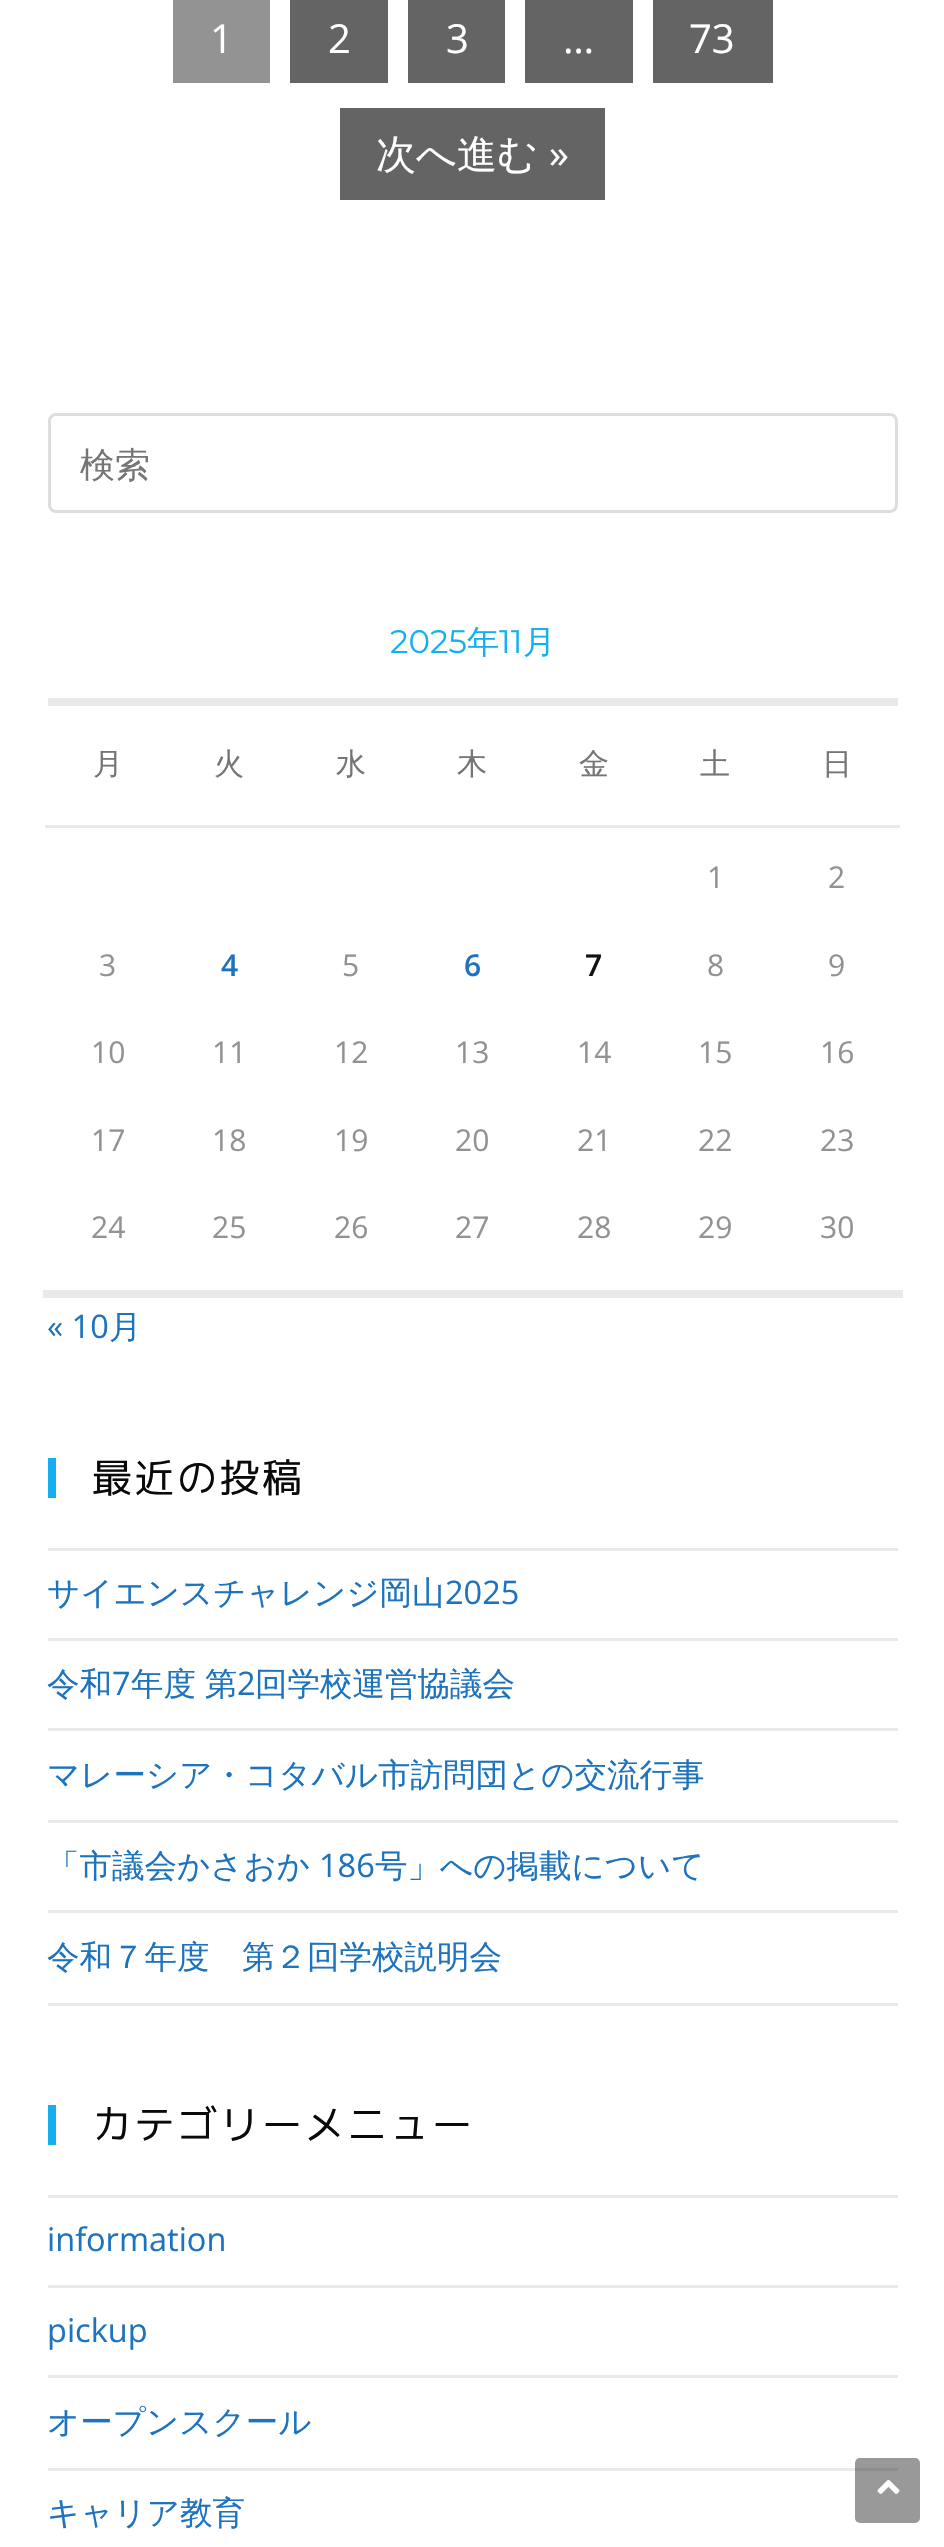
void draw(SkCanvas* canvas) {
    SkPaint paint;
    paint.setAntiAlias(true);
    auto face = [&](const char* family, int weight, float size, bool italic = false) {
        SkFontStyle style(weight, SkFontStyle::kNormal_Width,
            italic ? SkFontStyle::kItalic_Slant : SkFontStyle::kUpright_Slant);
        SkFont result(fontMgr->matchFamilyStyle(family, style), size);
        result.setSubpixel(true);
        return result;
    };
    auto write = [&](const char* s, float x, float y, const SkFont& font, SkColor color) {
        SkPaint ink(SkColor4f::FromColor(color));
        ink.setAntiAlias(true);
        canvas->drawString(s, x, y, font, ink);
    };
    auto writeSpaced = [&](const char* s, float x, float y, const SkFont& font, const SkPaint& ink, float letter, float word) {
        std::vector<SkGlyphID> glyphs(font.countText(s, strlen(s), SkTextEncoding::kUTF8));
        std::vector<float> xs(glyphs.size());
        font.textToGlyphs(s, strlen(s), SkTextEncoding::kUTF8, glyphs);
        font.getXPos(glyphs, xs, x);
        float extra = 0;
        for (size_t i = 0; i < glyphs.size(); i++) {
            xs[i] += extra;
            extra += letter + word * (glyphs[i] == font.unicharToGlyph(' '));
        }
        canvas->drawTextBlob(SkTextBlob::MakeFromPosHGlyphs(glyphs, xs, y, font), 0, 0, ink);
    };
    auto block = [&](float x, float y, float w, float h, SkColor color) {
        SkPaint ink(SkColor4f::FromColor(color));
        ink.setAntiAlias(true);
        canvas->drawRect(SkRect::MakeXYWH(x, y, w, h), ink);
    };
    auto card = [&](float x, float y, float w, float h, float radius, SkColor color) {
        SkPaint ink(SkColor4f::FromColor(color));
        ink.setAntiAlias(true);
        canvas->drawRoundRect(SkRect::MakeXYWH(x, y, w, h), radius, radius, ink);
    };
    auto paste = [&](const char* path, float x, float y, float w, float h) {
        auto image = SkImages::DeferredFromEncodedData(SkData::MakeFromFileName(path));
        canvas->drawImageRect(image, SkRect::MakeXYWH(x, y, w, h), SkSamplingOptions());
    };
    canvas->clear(SK_ColorWHITE);
    block(173, 0, 97, 83, SkColorSetRGB(147, 147, 147));
    auto kFont1 = face("Open Sans", 400, 40);
    write("1", 210, 53, kFont1, SK_ColorWHITE);
    block(290, 0, 98, 83, SkColorSetRGB(100, 100, 100));
    write("2", 328, 53, kFont1, SK_ColorWHITE);
    block(408, 0, 97, 83, SkColorSetRGB(100, 100, 100));
    write("3", 446, 53, kFont1, SK_ColorWHITE);
    block(525, 0, 108, 83, SkColorSetRGB(100, 100, 100));
    write("…", 563, 53, kFont1, SK_ColorWHITE);
    block(653, 0, 120, 83, SkColorSetRGB(100, 100, 100));
    write("73", 689, 53, kFont1, SK_ColorWHITE);
    block(340, 108, 265, 92, SkColorSetRGB(100, 100, 100));
    auto kFont2 = face("WenQuanYi Zen Hei", 500, 40);
    write("次へ進む", 376, 168, kFont2, SK_ColorWHITE);
    write("»", 549, 168, kFont1, SK_ColorWHITE);
    paint.setStyle(SkPaint::kStroke_Style);
    paint.setStrokeWidth(3);
    paint.setColor(SkColorSetRGB(221, 221, 221));
    canvas->drawRoundRect(SkRect::MakeXYWH(49.5f, 414.5f, 847, 97), 6.5f, 6.5f, paint);
    auto kFont3 = face("WenQuanYi Zen Hei", 500, 35);
    write("検索", 80, 477, kFont3, SkColorSetRGB(117, 117, 117));
    block(48, 698, 850, 8, SkColorSetRGB(233, 233, 233));
    auto kFont4 = face("Montserrat", 400, 32.5f);
    write("2025", 390, 653, kFont4, SkColorSetRGB(19, 175, 240));
    auto kFont5 = face("WenQuanYi Zen Hei", 500, 32.5f);
    write("年", 467, 653, kFont5, SkColorSetRGB(19, 175, 240));
    write("11", 499, 653, kFont4, SkColorSetRGB(19, 175, 240));
    write("月", 523, 653, kFont5, SkColorSetRGB(19, 175, 240));
    auto kFont6 = face("WenQuanYi Zen Hei", 500, 30);
    write("月", 93, 774, kFont6, SkColorSetRGB(117, 117, 117));
    write("火", 214, 774, kFont6, SkColorSetRGB(117, 117, 117));
    write("水", 336, 774, kFont6, SkColorSetRGB(117, 117, 117));
    write("木", 457, 774, kFont6, SkColorSetRGB(117, 117, 117));
    write("金", 579, 774, kFont6, SkColorSetRGB(117, 117, 117));
    write("土", 700, 774, kFont6, SkColorSetRGB(117, 117, 117));
    block(45, 825, 855, 3, SkColorSetRGB(233, 233, 233));
    write("日", 822, 774, kFont6, SkColorSetRGB(117, 117, 117));
    block(43, 1290, 860, 8, SkColorSetRGB(233, 233, 233));
    auto kFont7 = face("Open Sans", 400, 30);
    write("1", 707, 888, kFont7, SkColorSetRGB(146, 146, 146));
    write("2", 828, 888, kFont7, SkColorSetRGB(146, 146, 146));
    write("3", 99, 976, kFont7, SkColorSetRGB(146, 146, 146));
    auto kFont8 = face("Open Sans", 600, 30);
    write("4", 221, 976, kFont8, SkColorSetRGB(30, 115, 190));
    write("5", 342, 976, kFont7, SkColorSetRGB(146, 146, 146));
    write("6", 464, 976, kFont8, SkColorSetRGB(30, 115, 190));
    write("7", 585, 976, kFont8, SkColorSetRGB(17, 17, 17));
    write("8", 707, 976, kFont7, SkColorSetRGB(146, 146, 146));
    write("9", 828, 976, kFont7, SkColorSetRGB(146, 146, 146));
    write("10", 91, 1063, kFont7, SkColorSetRGB(146, 146, 146));
    write("11", 212, 1063, kFont7, SkColorSetRGB(146, 146, 146));
    write("12", 334, 1063, kFont7, SkColorSetRGB(146, 146, 146));
    write("13", 455, 1063, kFont7, SkColorSetRGB(146, 146, 146));
    write("14", 577, 1063, kFont7, SkColorSetRGB(146, 146, 146));
    write("15", 698, 1063, kFont7, SkColorSetRGB(146, 146, 146));
    write("16", 820, 1063, kFont7, SkColorSetRGB(146, 146, 146));
    write("17", 91, 1151, kFont7, SkColorSetRGB(146, 146, 146));
    write("18", 212, 1151, kFont7, SkColorSetRGB(146, 146, 146));
    write("19", 334, 1151, kFont7, SkColorSetRGB(146, 146, 146));
    write("20", 455, 1151, kFont7, SkColorSetRGB(146, 146, 146));
    write("21", 577, 1151, kFont7, SkColorSetRGB(146, 146, 146));
    write("22", 698, 1151, kFont7, SkColorSetRGB(146, 146, 146));
    write("23", 820, 1151, kFont7, SkColorSetRGB(146, 146, 146));
    write("24", 91, 1238, kFont7, SkColorSetRGB(146, 146, 146));
    write("25", 212, 1238, kFont7, SkColorSetRGB(146, 146, 146));
    write("26", 334, 1238, kFont7, SkColorSetRGB(146, 146, 146));
    write("27", 455, 1238, kFont7, SkColorSetRGB(146, 146, 146));
    write("28", 577, 1238, kFont7, SkColorSetRGB(146, 146, 146));
    write("29", 698, 1238, kFont7, SkColorSetRGB(146, 146, 146));
    write("30", 820, 1238, kFont7, SkColorSetRGB(146, 146, 146));
    auto kFont9 = face("Open Sans", 400, 32.5f);
    write("« 10", 47, 1338, kFont9, SkColorSetRGB(30, 115, 190));
    write("月", 109, 1338, kFont5, SkColorSetRGB(30, 115, 190));
    block(48, 1458, 8, 40, SkColorSetRGB(19, 175, 240));
    auto kFont10 = face("M PLUS 1p", 400, 40);
    paint.setStyle(SkPaint::kFill_Style);
    paint.setColor(SkColorSetRGB(10, 10, 10));
    writeSpaced("最近の投稿", 92, 1492, kFont10, paint, 2.5f, 0);
    block(48, 1548, 850, 3, SkColorSetRGB(233, 233, 233));
    block(48, 1638, 850, 3, SkColorSetRGB(233, 233, 233));
    write("サイエンスチャレンジ岡山", 47, 1604, kFont5, SkColorSetRGB(30, 115, 190));
    write("2025", 445, 1604, kFont9, SkColorSetRGB(30, 115, 190));
    block(48, 1728, 850, 3, SkColorSetRGB(233, 233, 233));
    write("令和", 47, 1695, kFont5, SkColorSetRGB(30, 115, 190));
    write("7", 112, 1695, kFont9, SkColorSetRGB(30, 115, 190));
    paint.setColor(SkColorSetRGB(30, 115, 190));
    writeSpaced("年度 第", 131, 1695, kFont5, paint, 0, -1);
    write("2", 237, 1695, kFont9, SkColorSetRGB(30, 115, 190));
    write("回学校運営協議会", 255, 1695, kFont5, SkColorSetRGB(30, 115, 190));
    block(48, 1820, 850, 3, SkColorSetRGB(233, 233, 233));
    write("マレーシア・コタバル市訪問団との交流行事", 47, 1786, kFont5, SkColorSetRGB(30, 115, 190));
    block(48, 1910, 850, 3, SkColorSetRGB(233, 233, 233));
    write("「市議会かさおか", 47, 1877, kFont5, SkColorSetRGB(30, 115, 190));
    write("186", 319, 1877, kFont9, SkColorSetRGB(30, 115, 190));
    write("号」への掲載について", 375, 1877, kFont5, SkColorSetRGB(30, 115, 190));
    block(48, 2003, 850, 3, SkColorSetRGB(233, 233, 233));
    write("令和７年度　第２回学校説明会", 47, 1968, kFont5, SkColorSetRGB(30, 115, 190));
    block(48, 2105, 8, 40, SkColorSetRGB(19, 175, 240));
    paint.setColor(SkColorSetRGB(10, 10, 10));
    writeSpaced("カテゴリーメニュー", 92, 2139, kFont10, paint, 2.5f, 0);
    block(48, 2195, 850, 3, SkColorSetRGB(233, 233, 233));
    block(48, 2285, 850, 3, SkColorSetRGB(233, 233, 233));
    write("information", 47, 2251, kFont9, SkColorSetRGB(30, 115, 190));
    block(48, 2375, 850, 3, SkColorSetRGB(233, 233, 233));
    write("pickup", 47, 2342, kFont9, SkColorSetRGB(30, 115, 190));
    block(48, 2468, 850, 3, SkColorSetRGB(233, 233, 233));
    write("オープンスクール", 47, 2433, kFont5, SkColorSetRGB(30, 115, 190));
    write("キャリア教育", 47, 2524, kFont5, SkColorSetRGB(30, 115, 190));
    card(855, 2458, 65, 65, 5, SkColorSetARGB(102, 0, 0, 0));
    paste("pic1.png", 877, 2479, 23, 15);
}
